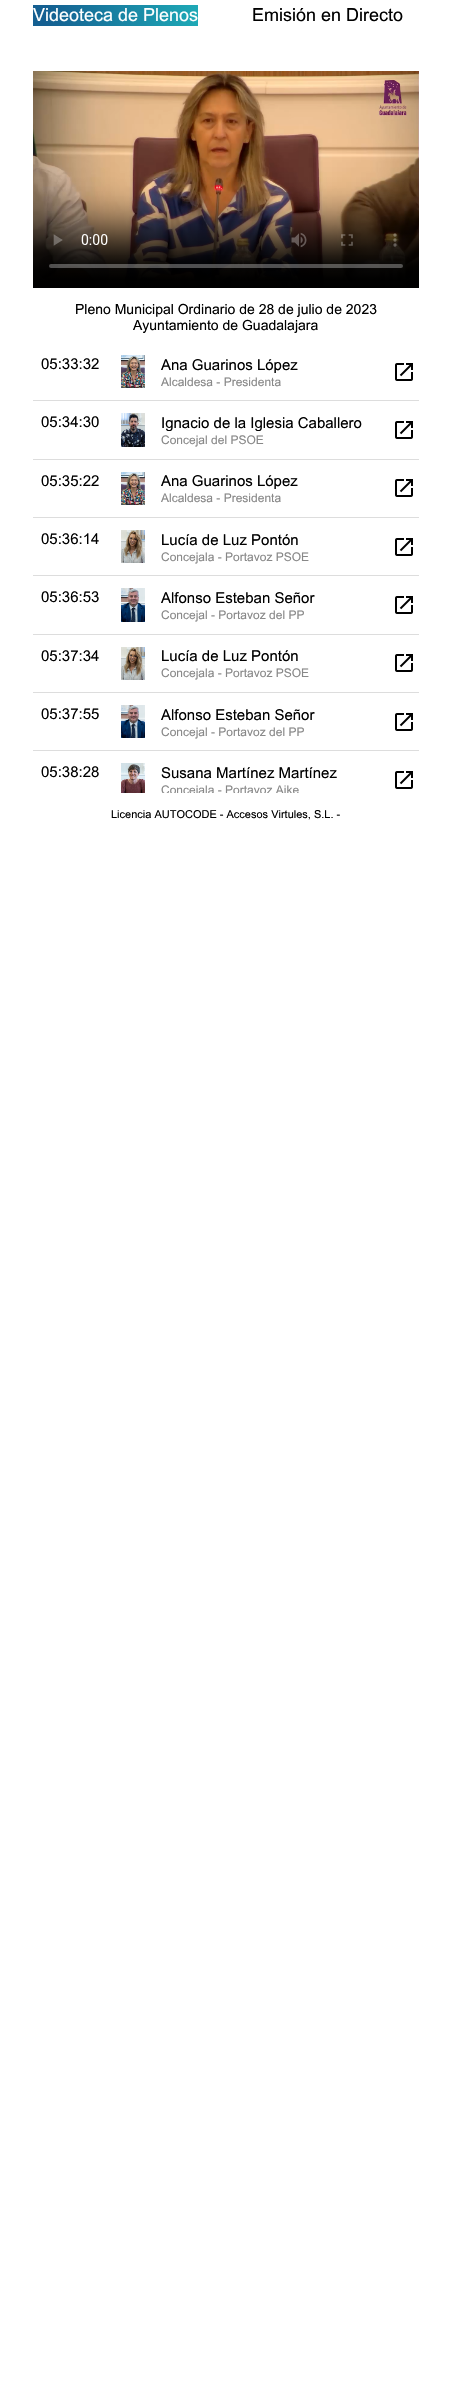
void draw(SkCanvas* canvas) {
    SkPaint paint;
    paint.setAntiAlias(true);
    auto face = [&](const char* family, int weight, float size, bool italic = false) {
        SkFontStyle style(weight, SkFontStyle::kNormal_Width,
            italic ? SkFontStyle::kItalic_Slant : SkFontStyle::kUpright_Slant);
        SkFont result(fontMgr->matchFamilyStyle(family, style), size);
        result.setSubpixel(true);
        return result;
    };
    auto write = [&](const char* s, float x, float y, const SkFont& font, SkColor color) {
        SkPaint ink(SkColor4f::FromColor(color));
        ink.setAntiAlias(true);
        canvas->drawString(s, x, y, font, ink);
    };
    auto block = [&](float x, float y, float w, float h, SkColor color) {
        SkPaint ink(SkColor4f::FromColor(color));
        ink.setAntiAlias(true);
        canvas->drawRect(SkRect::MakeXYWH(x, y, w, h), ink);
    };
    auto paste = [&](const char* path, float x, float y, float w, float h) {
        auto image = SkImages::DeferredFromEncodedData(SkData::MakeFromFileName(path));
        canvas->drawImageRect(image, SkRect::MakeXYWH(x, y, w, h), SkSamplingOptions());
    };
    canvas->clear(SK_ColorWHITE);
    {
        const SkColor colors[] = {SkColorSetRGB(20, 95, 145), SkColorSetRGB(20, 95, 145), SkColorSetRGB(30, 169, 182)};
        const float stops[] = {0, 0.08f, 1};
        const SkPoint ends[] = {{33, 16}, {198, 15}};
        paint.setShader(SkGradientShader::MakeLinear(ends, colors, stops, 3, SkTileMode::kClamp));
        paint.setAlpha(255);
    }
    canvas->drawRect(SkRect::MakeXYWH(33, 5, 165, 21), paint);
    auto kFont1 = face("Arial", 400, 18);
    write("Videoteca de Plenos", 33, 21, kFont1, SK_ColorWHITE);
    write("Emisión en Directo", 252, 21, kFont1, SK_ColorBLACK);
    paste("pic1.png", 33, 71, 386, 217);
    auto kFont2 = face("Arial", 400, 14);
    write("Pleno Municipal Ordinario de 28 de julio de 2023", 75, 314, kFont2, SK_ColorBLACK);
    write("Ayuntamiento de Guadalajara", 133, 330, kFont2, SK_ColorBLACK);
    block(33, 400, 386, 1, SkColorSetRGB(221, 221, 221));
    auto kFont3 = face("Arial", 400, 15);
    write("05:33:32", 41, 369, kFont3, SK_ColorBLACK);
    paste("pic2.png", 121, 355, 24, 33);
    write("Ana Guarinos López", 161, 370, kFont3, SK_ColorBLACK);
    auto kFont4 = face("Arial", 400, 12);
    write("Alcaldesa - Presidenta", 161, 386, kFont4, SkColorSetRGB(136, 136, 136));
    paste("pic3.png", 395, 363, 18, 18);
    block(33, 459, 386, 1, SkColorSetRGB(221, 221, 221));
    write("05:34:30", 41, 427, kFont3, SK_ColorBLACK);
    paste("pic4.png", 121, 413, 24, 34);
    canvas->save();
    canvas->clipRect(SkRect::MakeXYWH(161, 414, 220, 17));
    write("Ignacio de la Iglesia Caballero", 161, 428, kFont3, SK_ColorBLACK);
    canvas->restore();
    write("Concejal del PSOE", 161, 444, kFont4, SkColorSetRGB(136, 136, 136));
    paste("pic3.png", 395, 421, 18, 18);
    block(33, 517, 386, 1, SkColorSetRGB(221, 221, 221));
    write("05:35:22", 41, 486, kFont3, SK_ColorBLACK);
    paste("pic2.png", 121, 472, 24, 33);
    write("Ana Guarinos López", 161, 486, kFont3, SK_ColorBLACK);
    write("Alcaldesa - Presidenta", 161, 502, kFont4, SkColorSetRGB(136, 136, 136));
    paste("pic3.png", 395, 479, 18, 18);
    block(33, 575, 386, 1, SkColorSetRGB(221, 221, 221));
    write("05:36:14", 41, 544, kFont3, SK_ColorBLACK);
    paste("pic5.png", 121, 530, 24, 33);
    write("Lucía de Luz Pontón", 161, 545, kFont3, SK_ColorBLACK);
    write("Concejala - Portavoz PSOE", 161, 561, kFont4, SkColorSetRGB(136, 136, 136));
    paste("pic3.png", 395, 538, 18, 18);
    block(33, 634, 386, 1, SkColorSetRGB(221, 221, 221));
    write("05:36:53", 41, 602, kFont3, SK_ColorBLACK);
    paste("pic6.png", 121, 588, 24, 34);
    write("Alfonso Esteban Señor", 161, 603, kFont3, SK_ColorBLACK);
    write("Concejal - Portavoz del PP", 161, 619, kFont4, SkColorSetRGB(136, 136, 136));
    paste("pic3.png", 395, 596, 18, 18);
    block(33, 692, 386, 1, SkColorSetRGB(221, 221, 221));
    write("05:37:34", 41, 661, kFont3, SK_ColorBLACK);
    paste("pic5.png", 121, 647, 24, 33);
    write("Lucía de Luz Pontón", 161, 661, kFont3, SK_ColorBLACK);
    write("Concejala - Portavoz PSOE", 161, 677, kFont4, SkColorSetRGB(136, 136, 136));
    paste("pic3.png", 395, 654, 18, 18);
    block(33, 750, 386, 1, SkColorSetRGB(221, 221, 221));
    write("05:37:55", 41, 719, kFont3, SK_ColorBLACK);
    paste("pic7.png", 121, 705, 24, 33);
    write("Alfonso Esteban Señor", 161, 720, kFont3, SK_ColorBLACK);
    write("Concejal - Portavoz del PP", 161, 736, kFont4, SkColorSetRGB(136, 136, 136));
    paste("pic3.png", 395, 713, 18, 18);
    write("05:38:28", 41, 777, kFont3, SK_ColorBLACK);
    paste("pic8.png", 121, 763, 24, 30);
    write("Susana Martínez Martínez", 161, 778, kFont3, SK_ColorBLACK);
    canvas->save();
    canvas->clipRect(SkRect::MakeXYWH(161, 781, 220, 12));
    write("Concejala - Portavoz Aike", 161, 794, kFont4, SkColorSetRGB(136, 136, 136));
    canvas->restore();
    paste("pic3.png", 395, 771, 18, 18);
    auto kFont5 = face("Arial", 400, 11);
    write("Licencia AUTOCODE - Accesos Virtules, S.L. -", 111, 818, kFont5, SK_ColorBLACK);
}
